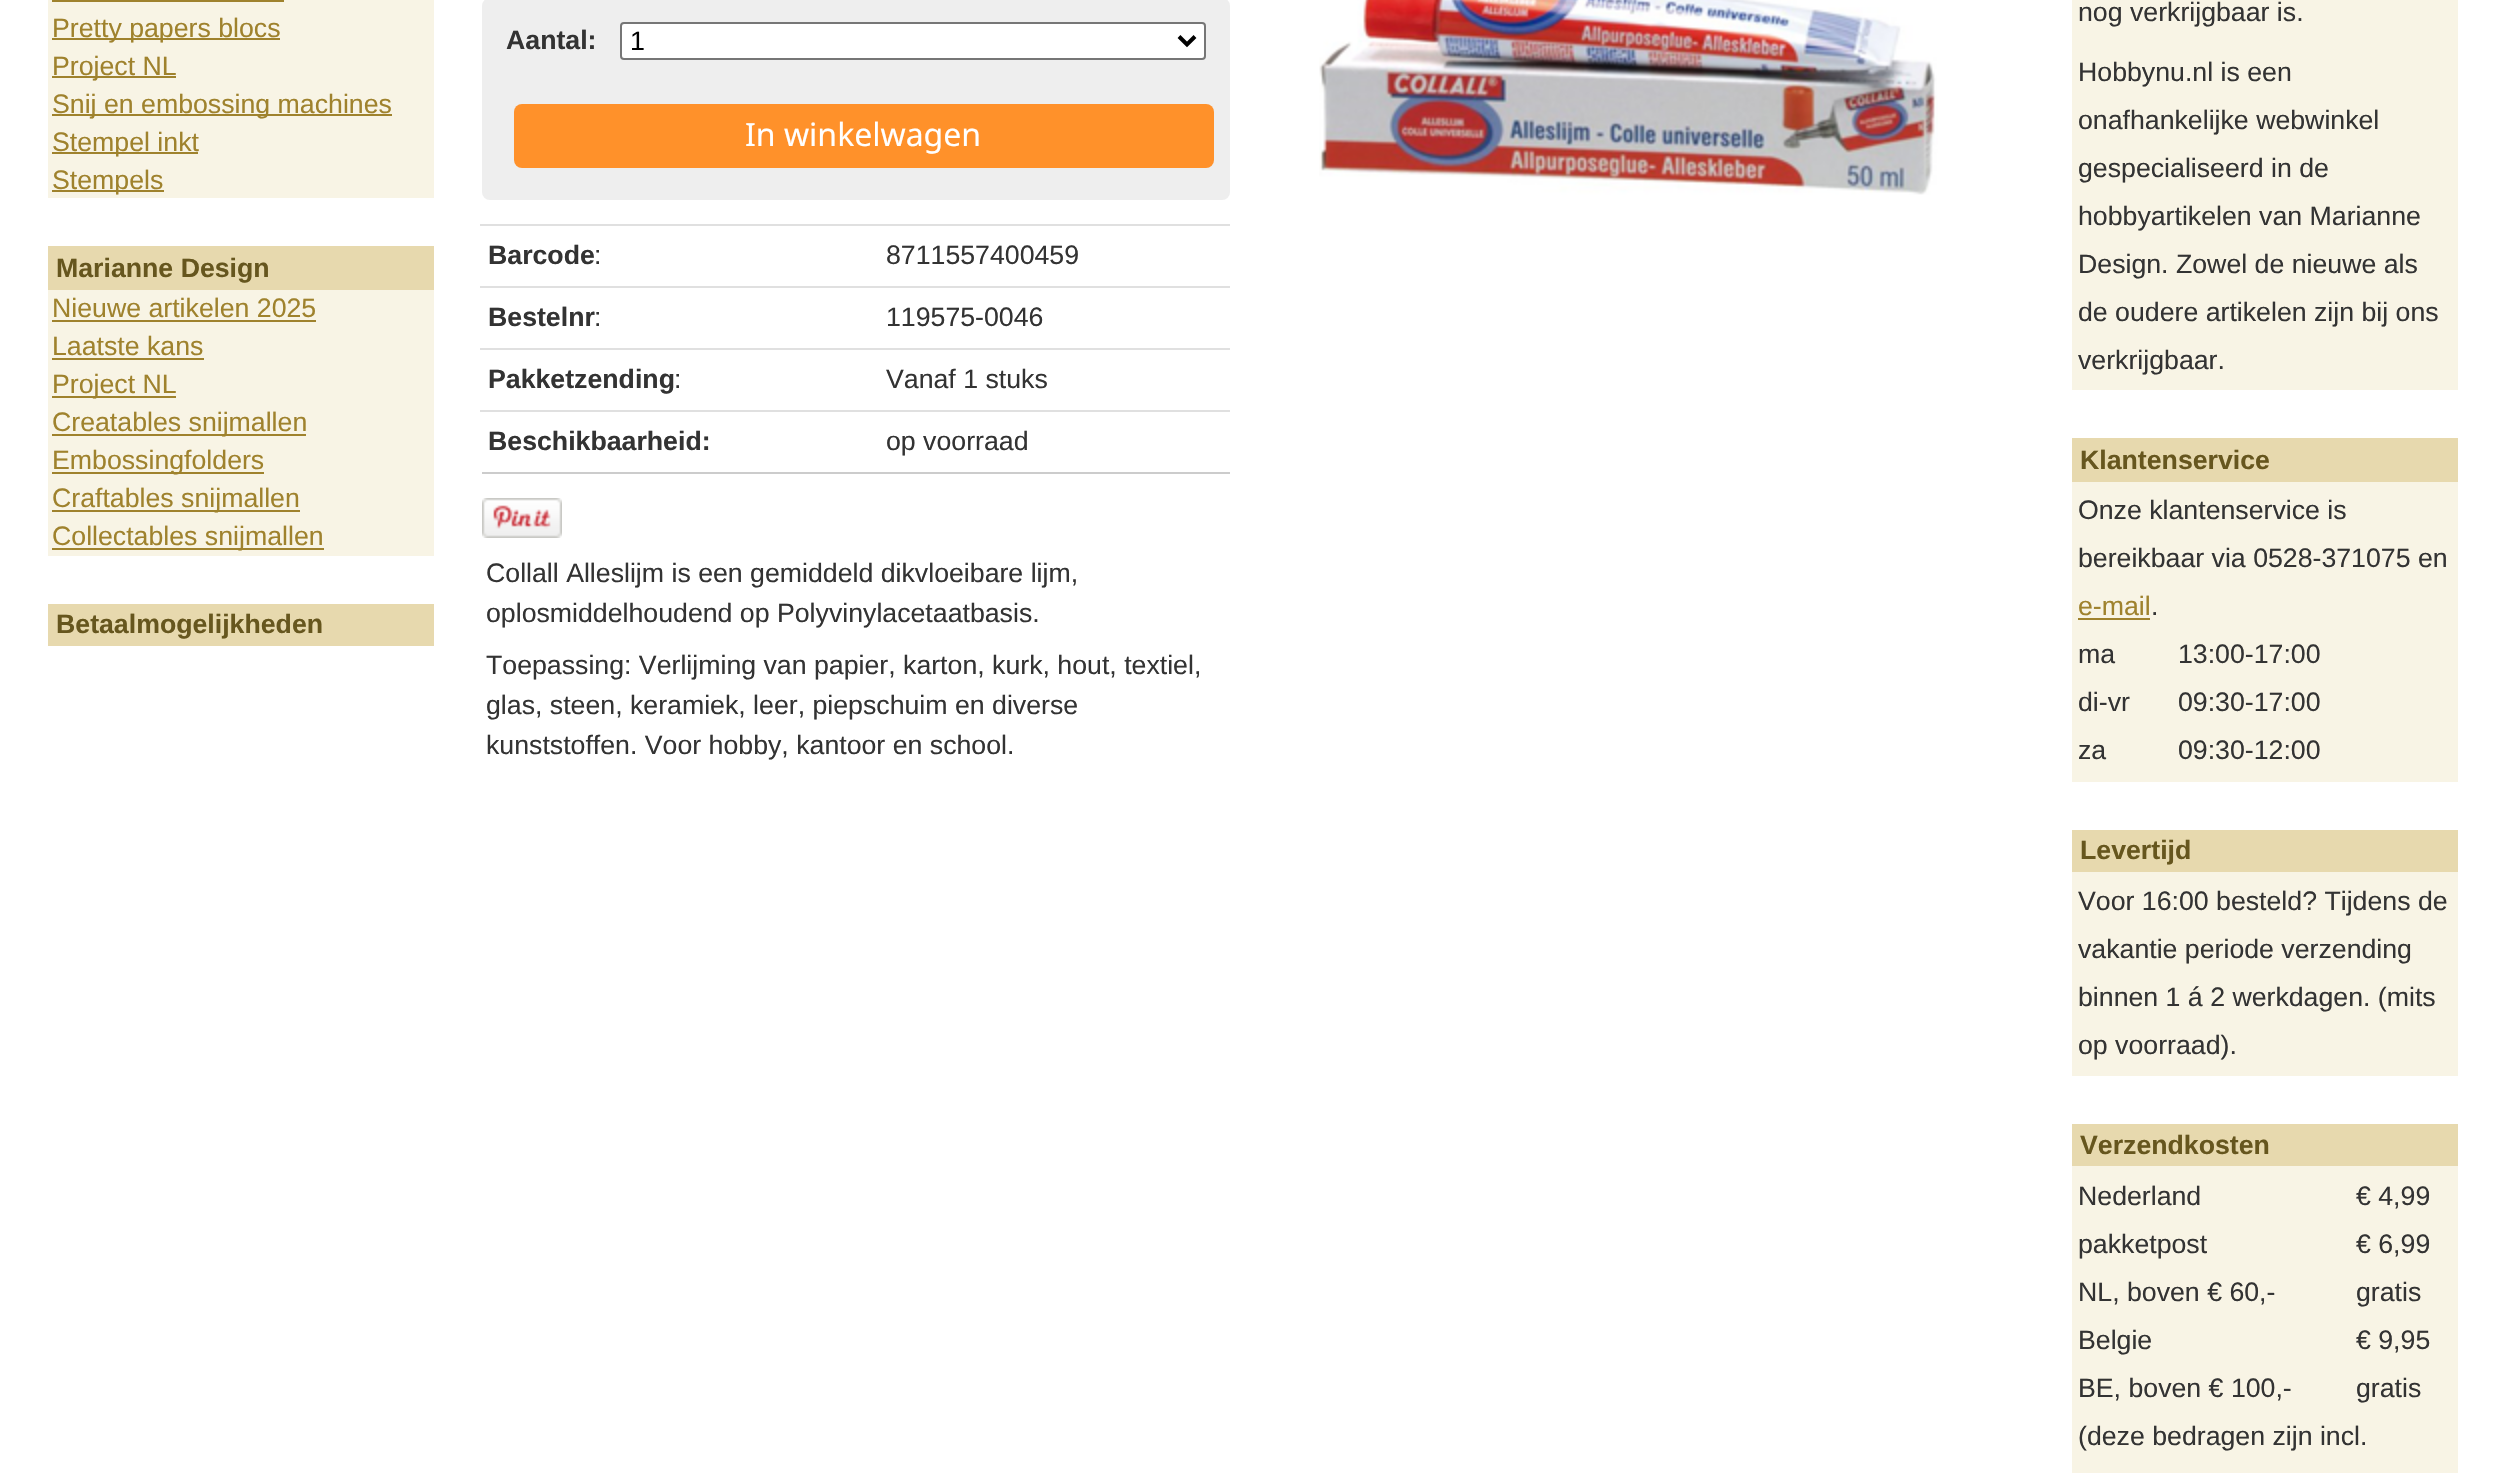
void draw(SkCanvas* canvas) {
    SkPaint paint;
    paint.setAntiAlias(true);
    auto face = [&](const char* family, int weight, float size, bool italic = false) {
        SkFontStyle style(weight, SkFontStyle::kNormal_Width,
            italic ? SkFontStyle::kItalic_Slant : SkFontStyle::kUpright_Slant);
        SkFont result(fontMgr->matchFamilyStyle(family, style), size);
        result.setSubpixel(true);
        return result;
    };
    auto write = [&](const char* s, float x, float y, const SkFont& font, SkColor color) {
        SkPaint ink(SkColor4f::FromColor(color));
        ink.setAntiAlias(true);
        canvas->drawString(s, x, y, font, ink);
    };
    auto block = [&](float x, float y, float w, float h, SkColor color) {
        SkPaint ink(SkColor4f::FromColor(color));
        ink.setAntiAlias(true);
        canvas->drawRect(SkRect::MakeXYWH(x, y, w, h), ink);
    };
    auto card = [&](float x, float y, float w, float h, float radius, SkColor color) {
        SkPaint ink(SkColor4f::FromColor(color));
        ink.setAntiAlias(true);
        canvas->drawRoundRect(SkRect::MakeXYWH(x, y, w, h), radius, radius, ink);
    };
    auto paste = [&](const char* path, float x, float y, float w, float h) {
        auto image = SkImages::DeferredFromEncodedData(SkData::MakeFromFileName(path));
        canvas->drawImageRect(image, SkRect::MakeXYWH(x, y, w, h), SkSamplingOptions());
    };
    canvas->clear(SK_ColorWHITE);
    block(48, 0, 386, 198, SkColorSetRGB(248, 244, 229));
    block(52, 0, 232, 2, SkColorSetRGB(159, 130, 45));
    block(52, 38, 228, 2, SkColorSetRGB(159, 130, 45));
    auto kFont1 = face("Liberation Sans", 400, 26.7f);
    write("Pretty papers blocs", 52, 37, kFont1, SkColorSetRGB(159, 130, 45));
    block(52, 76, 124, 2, SkColorSetRGB(159, 130, 45));
    write("Project NL", 52, 75, kFont1, SkColorSetRGB(159, 130, 45));
    block(52, 114, 340, 2, SkColorSetRGB(159, 130, 45));
    write("Snij en embossing machines", 52, 113, kFont1, SkColorSetRGB(159, 130, 45));
    block(52, 152, 146, 2, SkColorSetRGB(159, 130, 45));
    write("Stempel inkt", 52, 151, kFont1, SkColorSetRGB(159, 130, 45));
    block(52, 190, 112, 2, SkColorSetRGB(159, 130, 45));
    write("Stempels", 52, 189, kFont1, SkColorSetRGB(159, 130, 45));
    block(48, 246, 386, 44, SkColorSetRGB(231, 217, 174));
    auto kFont2 = face("Liberation Sans", 700, 26.7f);
    write("Marianne Design", 56, 277, kFont2, SkColorSetRGB(102, 86, 30));
    block(48, 290, 386, 266, SkColorSetRGB(248, 244, 229));
    write("Nieuwe artikelen 2025", 52, 317, kFont1, SkColorSetRGB(159, 130, 45));
    block(52, 320, 264, 2, SkColorSetRGB(159, 130, 45));
    write("Laatste kans", 52, 355, kFont1, SkColorSetRGB(159, 130, 45));
    block(52, 358, 152, 2, SkColorSetRGB(159, 130, 45));
    block(52, 396, 124, 2, SkColorSetRGB(159, 130, 45));
    write("Project NL", 52, 393, kFont1, SkColorSetRGB(159, 130, 45));
    block(52, 434, 254, 2, SkColorSetRGB(159, 130, 45));
    write("Creatables snijmallen", 52, 431, kFont1, SkColorSetRGB(159, 130, 45));
    block(52, 472, 212, 2, SkColorSetRGB(159, 130, 45));
    write("Embossingfolders", 52, 469, kFont1, SkColorSetRGB(159, 130, 45));
    block(52, 510, 248, 2, SkColorSetRGB(159, 130, 45));
    write("Craftables snijmallen", 52, 507, kFont1, SkColorSetRGB(159, 130, 45));
    block(52, 548, 272, 2, SkColorSetRGB(159, 130, 45));
    write("Collectables snijmallen", 52, 545, kFont1, SkColorSetRGB(159, 130, 45));
    block(48, 604, 386, 42, SkColorSetRGB(231, 217, 174));
    write("Betaalmogelijkheden", 56, 633, kFont2, SkColorSetRGB(102, 86, 30));
    card(482, -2, 748, 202, 8, SkColorSetRGB(238, 238, 238));
    write("Aantal:", 506, 49, kFont2, SkColorSetRGB(51, 51, 51));
    paint.setColor(SK_ColorWHITE);
    canvas->drawRoundRect(SkRect::MakeXYWH(621, 23, 584, 36), 3, 3, paint);
    paint.setStyle(SkPaint::kStroke_Style);
    paint.setStrokeWidth(2);
    paint.setColor(SkColorSetRGB(118, 118, 118));
    canvas->drawRoundRect(SkRect::MakeXYWH(621, 23, 584, 36), 3, 3, paint);
    paint.setStrokeWidth(4);
    paint.setColor(SK_ColorBLACK);
    canvas->drawPath(SkPathBuilder().moveTo(1179, 36.5f).lineTo(1187, 44.5f).lineTo(1195, 36.5f).detach(), paint);
    write("1", 630, 50, kFont1, SK_ColorBLACK);
    card(514, 104, 700, 64, 8, SkColorSetRGB(255, 145, 42));
    auto kFont3 = face("Noto Sans", 400, 32);
    write("In winkelwagen", 745, 146, kFont3, SK_ColorWHITE);
    block(482, 472, 748, 2, SkColorSetRGB(204, 204, 204));
    write("Barcode", 488, 264, kFont2, SkColorSetRGB(51, 51, 51));
    write(":", 594, 264, kFont1, SkColorSetRGB(51, 51, 51));
    block(480, 224, 750, 2, SkColorSetRGB(224, 224, 224));
    write("8711557400459", 886, 264, kFont1, SkColorSetRGB(51, 51, 51));
    write("Bestelnr", 488, 326, kFont2, SkColorSetRGB(51, 51, 51));
    write(":", 594, 326, kFont1, SkColorSetRGB(51, 51, 51));
    block(480, 286, 750, 2, SkColorSetRGB(224, 224, 224));
    write("119575-0046", 886, 326, kFont1, SkColorSetRGB(51, 51, 51));
    write("Pakketzending", 488, 388, kFont2, SkColorSetRGB(51, 51, 51));
    write(":", 674, 388, kFont1, SkColorSetRGB(51, 51, 51));
    block(480, 348, 750, 2, SkColorSetRGB(224, 224, 224));
    write("Vanaf 1 stuks", 886, 388, kFont1, SkColorSetRGB(51, 51, 51));
    write("Beschikbaarheid:", 488, 450, kFont2, SkColorSetRGB(51, 51, 51));
    block(480, 410, 750, 2, SkColorSetRGB(224, 224, 224));
    write("op voorraad", 886, 450, kFont1, SkColorSetRGB(51, 51, 51));
    paste("pic1.png", 482, 498, 80, 40);
    write("Collall Alleslijm is een gemiddeld dikvloeibare lijm,", 486, 582, kFont1, SkColorSetRGB(51, 51, 51));
    write("oplosmiddelhoudend op Polyvinylacetaatbasis.", 486, 622, kFont1, SkColorSetRGB(51, 51, 51));
    write("Toepassing: Verlijming van papier, karton, kurk, hout, textiel,", 486, 674, kFont1, SkColorSetRGB(51, 51, 51));
    write("glas, steen, keramiek, leer, piepschuim en diverse", 486, 714, kFont1, SkColorSetRGB(51, 51, 51));
    write("kunststoffen. Voor hobby, kantoor en school.", 486, 754, kFont1, SkColorSetRGB(51, 51, 51));
    paste("pic2.png", 1319, 0, 619, 195);
    block(2072, 0, 386, 390, SkColorSetRGB(248, 244, 229));
    write("nog verkrijgbaar is.", 2078, 21, kFont1, SkColorSetRGB(51, 51, 51));
    write("Hobbynu.nl is een", 2078, 81, kFont1, SkColorSetRGB(51, 51, 51));
    write("onafhankelijke webwinkel", 2078, 129, kFont1, SkColorSetRGB(51, 51, 51));
    write("gespecialiseerd in de", 2078, 177, kFont1, SkColorSetRGB(51, 51, 51));
    write("hobbyartikelen van Marianne", 2078, 225, kFont1, SkColorSetRGB(51, 51, 51));
    write("Design. Zowel de nieuwe als", 2078, 273, kFont1, SkColorSetRGB(51, 51, 51));
    write("de oudere artikelen zijn bij ons", 2078, 321, kFont1, SkColorSetRGB(51, 51, 51));
    write("verkrijgbaar.", 2078, 369, kFont1, SkColorSetRGB(51, 51, 51));
    block(2072, 438, 386, 44, SkColorSetRGB(231, 217, 174));
    write("Klantenservice", 2080, 469, kFont2, SkColorSetRGB(102, 86, 30));
    block(2072, 482, 386, 300, SkColorSetRGB(248, 244, 229));
    write("Onze klantenservice is", 2078, 519, kFont1, SkColorSetRGB(51, 51, 51));
    write("bereikbaar via 0528-371075 en", 2078, 567, kFont1, SkColorSetRGB(51, 51, 51));
    write("e-mail", 2078, 615, kFont1, SkColorSetRGB(159, 130, 45));
    block(2078, 618, 72, 2, SkColorSetRGB(159, 130, 45));
    write(".", 2151, 615, kFont1, SkColorSetRGB(51, 51, 51));
    write("ma", 2078, 663, kFont1, SkColorSetRGB(51, 51, 51));
    write("13:00-17:00", 2178, 663, kFont1, SkColorSetRGB(51, 51, 51));
    write("di-vr", 2078, 711, kFont1, SkColorSetRGB(51, 51, 51));
    write("09:30-17:00", 2178, 711, kFont1, SkColorSetRGB(51, 51, 51));
    write("za", 2078, 759, kFont1, SkColorSetRGB(51, 51, 51));
    write("09:30-12:00", 2178, 759, kFont1, SkColorSetRGB(51, 51, 51));
    block(2072, 830, 386, 42, SkColorSetRGB(231, 217, 174));
    write("Levertijd", 2080, 859, kFont2, SkColorSetRGB(102, 86, 30));
    block(2072, 872, 386, 204, SkColorSetRGB(248, 244, 229));
    write("Voor 16:00 besteld? Tijdens de", 2078, 910, kFont1, SkColorSetRGB(51, 51, 51));
    write("vakantie periode verzending", 2078, 958, kFont1, SkColorSetRGB(51, 51, 51));
    write("binnen 1 á 2 werkdagen. (mits", 2078, 1006, kFont1, SkColorSetRGB(51, 51, 51));
    write("op voorraad).", 2078, 1054, kFont1, SkColorSetRGB(51, 51, 51));
    block(2072, 1124, 386, 42, SkColorSetRGB(231, 217, 174));
    write("Verzendkosten", 2080, 1154, kFont2, SkColorSetRGB(102, 86, 30));
    block(2072, 1166, 386, 307, SkColorSetRGB(248, 244, 229));
    write("Nederland", 2078, 1205, kFont1, SkColorSetRGB(51, 51, 51));
    write("€ 4,99", 2356, 1205, kFont1, SkColorSetRGB(51, 51, 51));
    write("pakketpost", 2078, 1253, kFont1, SkColorSetRGB(51, 51, 51));
    write("€ 6,99", 2356, 1253, kFont1, SkColorSetRGB(51, 51, 51));
    write("NL, boven € 60,-", 2078, 1301, kFont1, SkColorSetRGB(51, 51, 51));
    write("gratis", 2356, 1301, kFont1, SkColorSetRGB(51, 51, 51));
    write("Belgie", 2078, 1349, kFont1, SkColorSetRGB(51, 51, 51));
    write("€ 9,95", 2356, 1349, kFont1, SkColorSetRGB(51, 51, 51));
    write("BE, boven € 100,-", 2078, 1397, kFont1, SkColorSetRGB(51, 51, 51));
    write("gratis", 2356, 1397, kFont1, SkColorSetRGB(51, 51, 51));
    write("(deze bedragen zijn incl.", 2078, 1445, kFont1, SkColorSetRGB(51, 51, 51));
}
